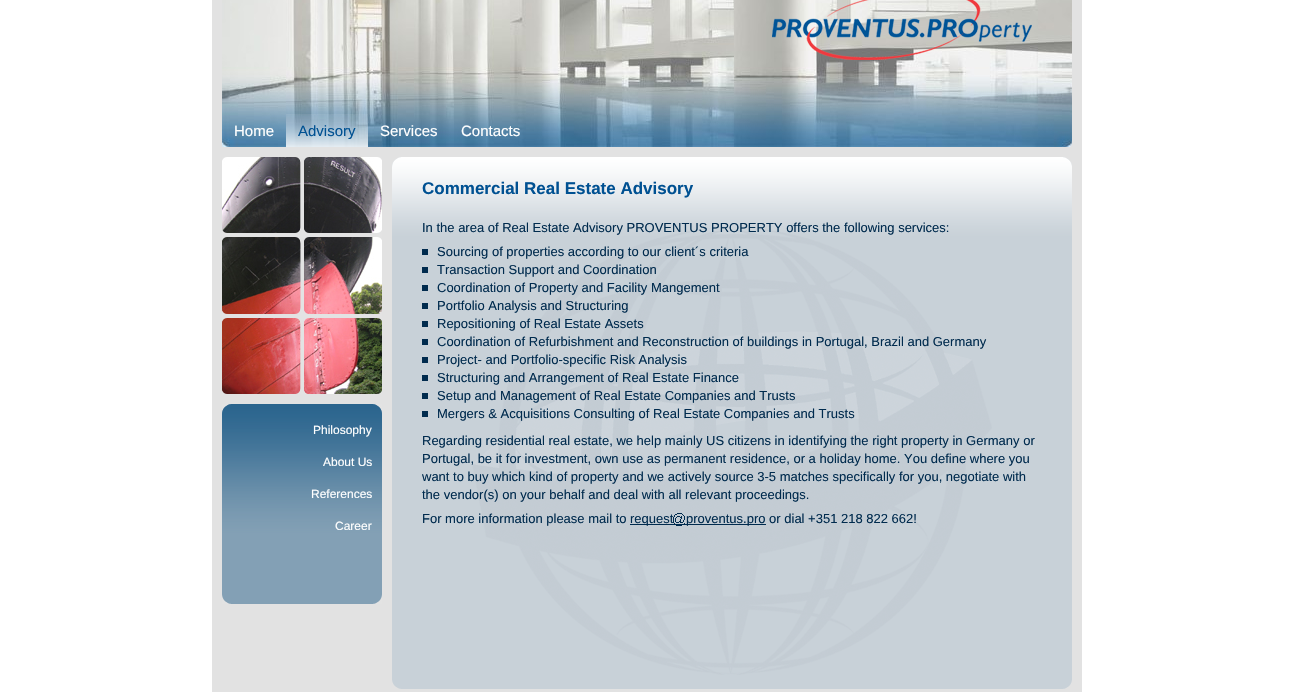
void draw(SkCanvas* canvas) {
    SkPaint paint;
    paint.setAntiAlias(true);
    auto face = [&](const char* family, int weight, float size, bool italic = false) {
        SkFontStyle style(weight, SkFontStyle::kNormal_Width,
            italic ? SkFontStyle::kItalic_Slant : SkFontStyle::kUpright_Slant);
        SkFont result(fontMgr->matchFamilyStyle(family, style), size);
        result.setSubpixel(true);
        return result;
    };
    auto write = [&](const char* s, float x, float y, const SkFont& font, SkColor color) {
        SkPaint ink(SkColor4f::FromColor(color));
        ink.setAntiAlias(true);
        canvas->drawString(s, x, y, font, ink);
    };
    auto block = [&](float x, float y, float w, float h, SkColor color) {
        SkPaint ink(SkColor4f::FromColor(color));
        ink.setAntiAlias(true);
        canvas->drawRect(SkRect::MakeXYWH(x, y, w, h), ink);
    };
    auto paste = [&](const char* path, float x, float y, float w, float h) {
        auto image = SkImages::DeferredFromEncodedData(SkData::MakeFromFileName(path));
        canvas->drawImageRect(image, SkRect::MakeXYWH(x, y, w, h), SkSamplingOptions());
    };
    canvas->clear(SK_ColorWHITE);
    block(212, 0, 870, 692, SkColorSetRGB(226, 226, 226));
    paste("pic1.png", 222, 0, 850, 147);
    paste("pic2.png", 772, 0, 260, 60);
    auto kFont1 = face("Liberation Sans", 400, 15);
    write("Home", 234, 136, kFont1, SK_ColorWHITE);
    paste("pic3.png", 286, 114, 82, 33);
    write("Advisory", 298, 136, kFont1, SkColorSetRGB(0, 81, 146));
    write("Services", 380, 136, kFont1, SK_ColorWHITE);
    write("Contacts", 461, 136, kFont1, SK_ColorWHITE);
    paste("pic4.png", 222, 157, 160, 237);
    paste("pic5.png", 222, 157, 160, 237);
    block(222, 404, 160, 200, SkColorSetRGB(131, 160, 181));
    paste("pic6.png", 222, 404, 160, 200);
    auto kFont2 = face("Liberation Sans", 400, 12);
    write("Philosophy", 313, 434, kFont2, SK_ColorWHITE);
    write("About Us", 323, 466, kFont2, SK_ColorWHITE);
    write("References", 311, 498, kFont2, SK_ColorWHITE);
    write("Career", 335, 530, kFont2, SK_ColorWHITE);
    block(392, 157, 680, 532, SkColorSetRGB(200, 209, 216));
    paste("pic7.png", 392, 157, 680, 518);
    auto kFont3 = face("Liberation Sans", 700, 17);
    write("Commercial Real Estate Advisory", 422, 194, kFont3, SkColorSetRGB(0, 81, 146));
    auto kFont4 = face("Liberation Sans", 400, 13);
    write("In the area of Real Estate Advisory PROVENTUS PROPERTY offers the following services:", 422, 232, kFont4, SkColorSetRGB(0, 43, 78));
    block(422, 249, 6, 6, SkColorSetRGB(0, 43, 78));
    write("Sourcing of properties according to our client´s criteria", 437, 256, kFont4, SkColorSetRGB(0, 43, 78));
    block(422, 267, 6, 6, SkColorSetRGB(0, 43, 78));
    write("Transaction Support and Coordination", 437, 274, kFont4, SkColorSetRGB(0, 43, 78));
    block(422, 285, 6, 6, SkColorSetRGB(0, 43, 78));
    write("Coordination of Property and Facility Mangement", 437, 292, kFont4, SkColorSetRGB(0, 43, 78));
    block(422, 303, 6, 6, SkColorSetRGB(0, 43, 78));
    write("Portfolio Analysis and Structuring", 437, 310, kFont4, SkColorSetRGB(0, 43, 78));
    block(422, 321, 6, 6, SkColorSetRGB(0, 43, 78));
    write("Repositioning of Real Estate Assets", 437, 328, kFont4, SkColorSetRGB(0, 43, 78));
    block(422, 339, 6, 6, SkColorSetRGB(0, 43, 78));
    write("Coordination of Refurbishment and Reconstruction of buildings in Portugal, Brazil and Germany", 437, 346, kFont4, SkColorSetRGB(0, 43, 78));
    block(422, 357, 6, 6, SkColorSetRGB(0, 43, 78));
    write("Project- and Portfolio-specific Risk Analysis", 437, 364, kFont4, SkColorSetRGB(0, 43, 78));
    block(422, 375, 6, 6, SkColorSetRGB(0, 43, 78));
    write("Structuring and Arrangement of Real Estate Finance", 437, 382, kFont4, SkColorSetRGB(0, 43, 78));
    block(422, 393, 6, 6, SkColorSetRGB(0, 43, 78));
    write("Setup and Management of Real Estate Companies and Trusts", 437, 400, kFont4, SkColorSetRGB(0, 43, 78));
    block(422, 411, 6, 6, SkColorSetRGB(0, 43, 78));
    write("Mergers & Acquisitions Consulting of Real Estate Companies and Trusts", 437, 418, kFont4, SkColorSetRGB(0, 43, 78));
    write("Regarding residential real estate, we help mainly US citizens in identifying the right property in Germany or", 422, 445, kFont4, SkColorSetRGB(0, 43, 78));
    write("Portugal, be it for investment, own use as permanent residence, or a holiday home. You define where you", 422, 463, kFont4, SkColorSetRGB(0, 43, 78));
    write("want to buy which kind of property and we actively source 3-5 matches specifically for you, negotiate with", 422, 481, kFont4, SkColorSetRGB(0, 43, 78));
    write("the vendor(s) on your behalf and deal with all relevant proceedings.", 422, 499, kFont4, SkColorSetRGB(0, 43, 78));
    write("For more information please mail to", 422, 523, kFont4, SkColorSetRGB(0, 43, 78));
    block(630, 524, 43, 1, SkColorSetRGB(0, 43, 78));
    write("request", 630, 523, kFont4, SkColorSetRGB(0, 43, 78));
    paste("pic8.png", 673, 513, 13, 13);
    block(686, 524, 80, 1, SkColorSetRGB(0, 43, 78));
    write("proventus.pro or dial +351 218 822 662!", 686, 523, kFont4, SkColorSetRGB(0, 43, 78));
    paste("pic9.png", 392, 680, 680, 9);
}
